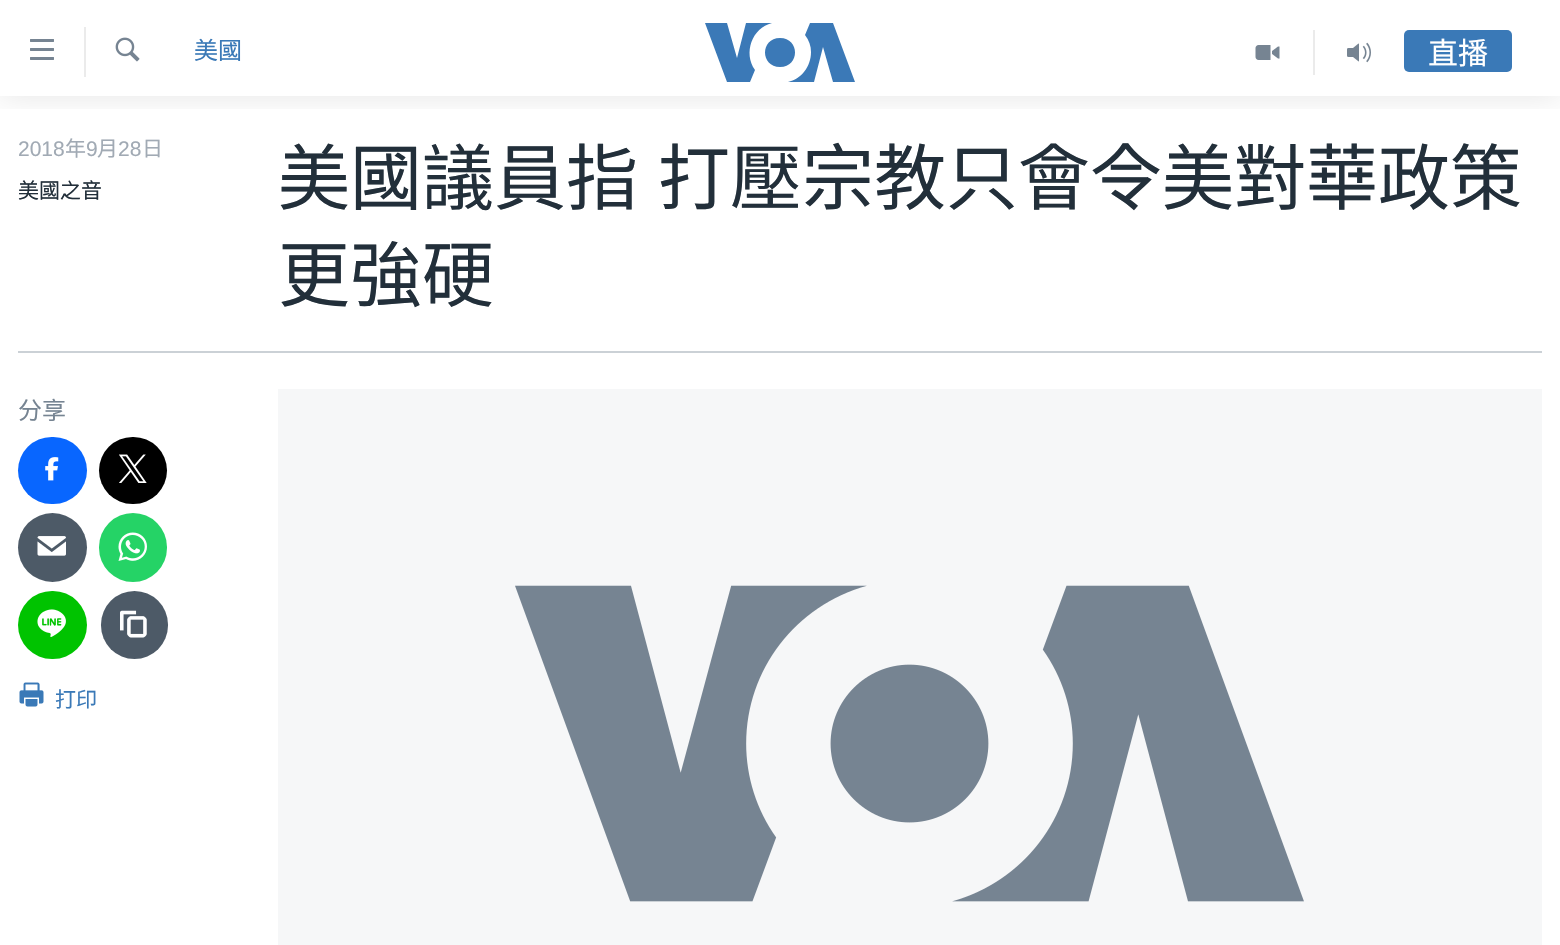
void draw(SkCanvas* canvas) {
    SkPaint paint;
    paint.setAntiAlias(true);
    auto face = [&](const char* family, int weight, float size, bool italic = false) {
        SkFontStyle style(weight, SkFontStyle::kNormal_Width,
            italic ? SkFontStyle::kItalic_Slant : SkFontStyle::kUpright_Slant);
        SkFont result(fontMgr->matchFamilyStyle(family, style), size);
        result.setSubpixel(true);
        return result;
    };
    auto write = [&](const char* s, float x, float y, const SkFont& font, SkColor color) {
        SkPaint ink(SkColor4f::FromColor(color));
        ink.setAntiAlias(true);
        canvas->drawString(s, x, y, font, ink);
    };
    auto writeSpaced = [&](const char* s, float x, float y, const SkFont& font, const SkPaint& ink, float letter, float word) {
        std::vector<SkGlyphID> glyphs(font.countText(s, strlen(s), SkTextEncoding::kUTF8));
        std::vector<float> xs(glyphs.size());
        font.textToGlyphs(s, strlen(s), SkTextEncoding::kUTF8, glyphs);
        font.getXPos(glyphs, xs, x);
        float extra = 0;
        for (size_t i = 0; i < glyphs.size(); i++) {
            xs[i] += extra;
            extra += letter + word * (glyphs[i] == font.unicharToGlyph(' '));
        }
        canvas->drawTextBlob(SkTextBlob::MakeFromPosHGlyphs(glyphs, xs, y, font), 0, 0, ink);
    };
    auto block = [&](float x, float y, float w, float h, SkColor color) {
        SkPaint ink(SkColor4f::FromColor(color));
        ink.setAntiAlias(true);
        canvas->drawRect(SkRect::MakeXYWH(x, y, w, h), ink);
    };
    auto card = [&](float x, float y, float w, float h, float radius, SkColor color) {
        SkPaint ink(SkColor4f::FromColor(color));
        ink.setAntiAlias(true);
        canvas->drawRoundRect(SkRect::MakeXYWH(x, y, w, h), radius, radius, ink);
    };
    auto paste = [&](const char* path, float x, float y, float w, float h) {
        auto image = SkImages::DeferredFromEncodedData(SkData::MakeFromFileName(path));
        canvas->drawImageRect(image, SkRect::MakeXYWH(x, y, w, h), SkSamplingOptions());
    };
    canvas->clear(SK_ColorWHITE);
    canvas->save();
    canvas->clipRect(SkRect::MakeXYWH(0, 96, 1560, 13));
    paint.setColor(SkColorSetARGB(26, 0, 0, 0));
    paint.setMaskFilter(SkMaskFilter::MakeBlur(kNormal_SkBlurStyle, 15));
    canvas->drawRect(SkRect::MakeXYWH(0, 0, 1560, 96), paint);
    paint.setMaskFilter(nullptr);
    canvas->restore();
    paste("pic1.png", 30, 39, 24, 21);
    block(84, 27, 2, 50, SkColorSetRGB(235, 235, 235));
    paste("pic2.png", 115, 37, 25, 25);
    auto kFont1 = face("Chiron Hei HK", 400, 24);
    write("美國", 194, 59, kFont1, SkColorSetRGB(58, 121, 183));
    paint.setColor(SkColorSetRGB(59, 121, 183));
    canvas->drawPath(SkPathBuilder().moveTo(755, 70).lineTo(750, 82).lineTo(727, 82).lineTo(705, 23).lineTo(727, 23).lineTo(737, 58).lineTo(746, 23).lineTo(772, 23).cubicTo(752, 28, 743, 53, 755, 70).close().moveTo(780, 38).cubicTo(760, 38, 760, 67, 780, 67).cubicTo(800, 67, 800, 38, 780, 38).close().moveTo(811, 52).cubicTo(811, 67, 801, 79, 788, 82).lineTo(814, 82).lineTo(823, 47).lineTo(833, 82).lineTo(855, 82).lineTo(833, 23).lineTo(810, 23).lineTo(805, 35).cubicTo(809, 40, 811, 46, 811, 52).close().detach(), paint);
    block(1313, 30, 2, 45, SkColorSetRGB(235, 235, 235));
    paste("pic3.png", 1255, 45, 25, 15);
    paste("pic4.png", 1347, 42, 24, 21);
    card(1404, 30, 108, 42, 5, SkColorSetRGB(58, 121, 183));
    auto kFont2 = face("Chiron Hei HK", 400, 30);
    write("直播", 1428, 64, kFont2, SK_ColorWHITE);
    auto kFont3 = face("Liberation Sans", 400, 21);
    write("2018", 18, 156, kFont3, SkColorSetRGB(161, 170, 180));
    auto kFont4 = face("Chiron Hei HK", 400, 21);
    write("年", 65, 156, kFont4, SkColorSetRGB(161, 170, 180));
    write("9", 86, 156, kFont3, SkColorSetRGB(161, 170, 180));
    write("月", 97, 156, kFont4, SkColorSetRGB(161, 170, 180));
    write("28", 118, 156, kFont3, SkColorSetRGB(161, 170, 180));
    write("日", 142, 156, kFont4, SkColorSetRGB(161, 170, 180));
    write("美國之音", 18, 198, kFont4, SkColorSetRGB(34, 47, 58));
    auto kFont5 = face("Chiron Hei HK", 400, 72);
    paint.setColor(SkColorSetRGB(34, 47, 58));
    writeSpaced("美國議員指 打壓宗教只會令美對華政策", 278, 204, kFont5, paint, 0, 4);
    write("更強硬", 278, 301, kFont5, SkColorSetRGB(34, 47, 58));
    block(18, 351, 1524, 2, SkColorSetRGB(203, 209, 214));
    write("分享", 18, 419, kFont1, SkColorSetRGB(118, 132, 146));
    card(18, 437, 69, 67, 33.5f, SkColorSetRGB(8, 102, 255));
    paste("pic5.png", 45, 457, 14, 24);
    card(99, 437, 68, 67, 33.5f, SK_ColorBLACK);
    paste("pic6.png", 119, 454, 28, 29);
    paint.setColor(SkColorSetRGB(77, 90, 103));
    canvas->drawCircle(52.5f, 547.5f, 34.5f, paint);
    paste("pic7.png", 37, 536, 29, 20);
    card(99, 513, 68, 69, 34, SkColorSetRGB(37, 211, 102));
    paste("pic8.png", 118, 532, 29, 29);
    card(18, 591, 69, 68, 34, SkColorSetRGB(0, 195, 0));
    paste("pic9.png", 37, 609, 29, 28);
    card(101, 591, 67, 68, 33.5f, SkColorSetRGB(77, 90, 103));
    paste("pic10.png", 120, 610, 27, 28);
    paste("pic11.png", 19, 682, 25, 25);
    write("打印", 55, 707, kFont4, SkColorSetRGB(58, 121, 183));
    block(278, 389, 1264, 556, SkColorSetRGB(246, 247, 248));
    paste("pic12.png", 515, 585, 789, 317);
}
